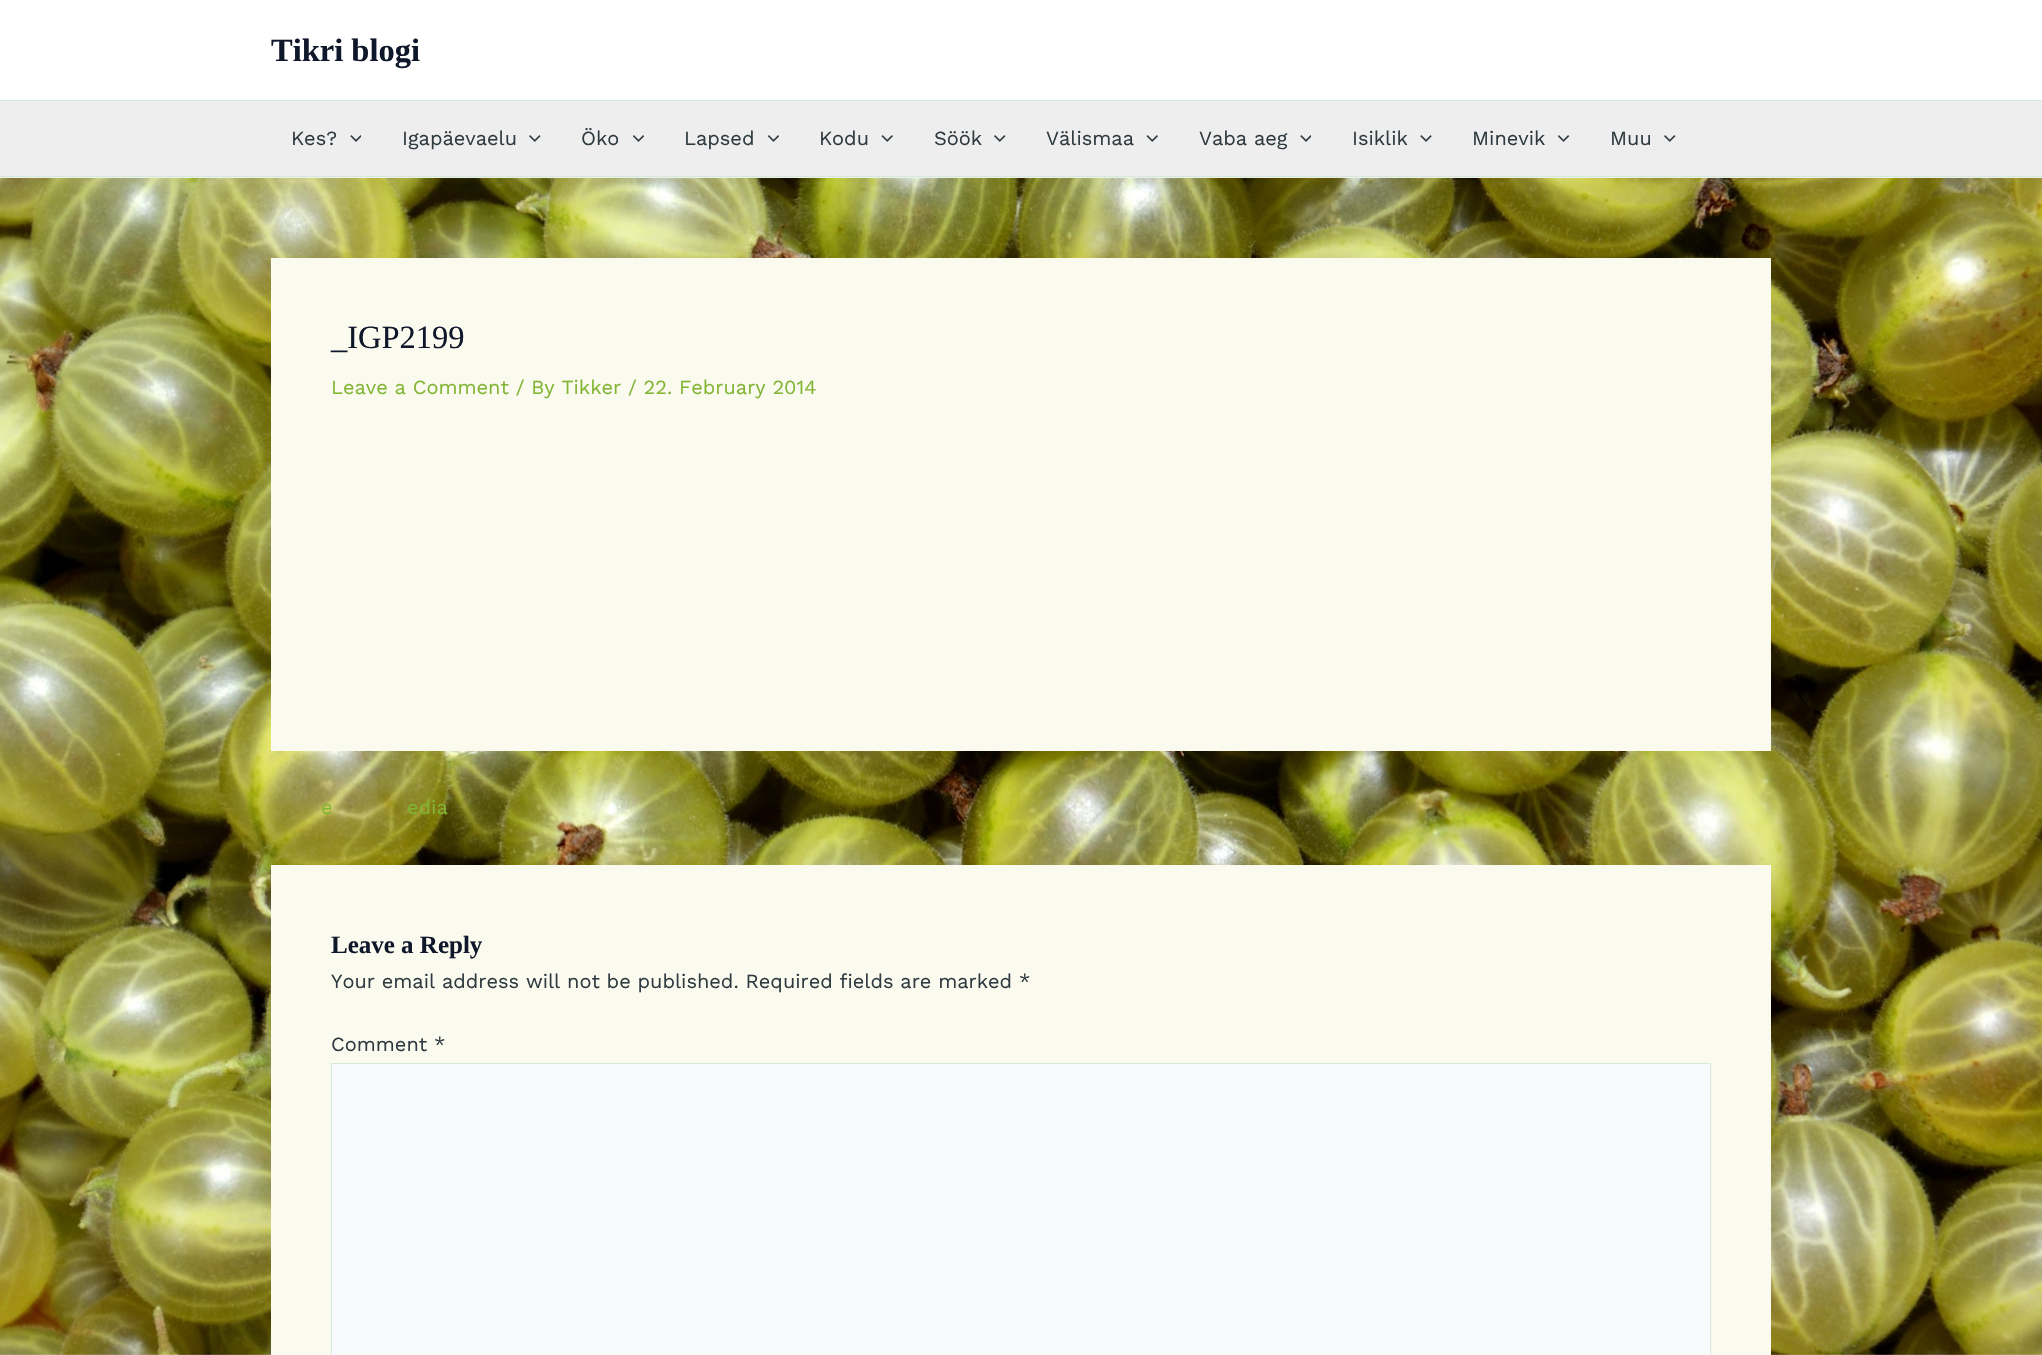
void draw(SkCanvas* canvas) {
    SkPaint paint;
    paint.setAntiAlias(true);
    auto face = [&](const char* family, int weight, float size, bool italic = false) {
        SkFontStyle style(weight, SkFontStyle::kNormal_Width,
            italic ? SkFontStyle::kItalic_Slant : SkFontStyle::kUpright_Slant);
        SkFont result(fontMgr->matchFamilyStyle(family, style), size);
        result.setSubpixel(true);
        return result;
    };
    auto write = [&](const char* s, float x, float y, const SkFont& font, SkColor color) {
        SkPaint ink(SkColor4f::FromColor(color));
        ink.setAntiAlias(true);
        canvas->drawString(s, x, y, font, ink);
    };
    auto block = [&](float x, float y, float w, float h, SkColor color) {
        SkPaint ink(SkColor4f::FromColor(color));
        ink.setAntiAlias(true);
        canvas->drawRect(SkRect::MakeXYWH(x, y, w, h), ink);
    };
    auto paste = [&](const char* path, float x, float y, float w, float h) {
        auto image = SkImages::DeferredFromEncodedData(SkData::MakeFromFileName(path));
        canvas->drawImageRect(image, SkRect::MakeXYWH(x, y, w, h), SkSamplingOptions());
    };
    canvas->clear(SK_ColorWHITE);
    paste("pic1.png", 0, 178, 2042, 1177);
    block(0, 100, 2042, 1, SkColorSetRGB(213, 234, 216));
    auto kFont1 = face("Liberation Serif", 700, 32.5f);
    write("Tikri blogi", 271, 61, kFont1, SkColorSetRGB(15, 23, 42));
    block(0, 101, 2042, 77, SkColorSetRGB(238, 238, 238));
    block(0, 176, 2042, 1, SkColorSetRGB(213, 234, 216));
    auto kFont2 = face("Work Sans", 400, 20);
    write("Kes?", 291, 145, kFont2, SkColorSetRGB(47, 59, 64));
    paste("pic2.png", 350, 135, 11, 7);
    write("Igapäevaelu", 402, 145, kFont2, SkColorSetRGB(47, 59, 64));
    paste("pic3.png", 529, 135, 12, 7);
    write("Öko", 581, 145, kFont2, SkColorSetRGB(47, 59, 64));
    paste("pic4.png", 633, 135, 11, 7);
    write("Lapsed", 684, 145, kFont2, SkColorSetRGB(47, 59, 64));
    paste("pic4.png", 768, 135, 11, 7);
    write("Kodu", 819, 145, kFont2, SkColorSetRGB(47, 59, 64));
    paste("pic5.png", 881, 135, 12, 7);
    write("Söök", 934, 145, kFont2, SkColorSetRGB(47, 59, 64));
    paste("pic3.png", 994, 135, 12, 7);
    write("Välismaa", 1046, 145, kFont2, SkColorSetRGB(47, 59, 64));
    paste("pic5.png", 1146, 135, 12, 7);
    write("Vaba aeg", 1199, 145, kFont2, SkColorSetRGB(47, 59, 64));
    paste("pic2.png", 1300, 135, 11, 7);
    write("Isiklik", 1352, 145, kFont2, SkColorSetRGB(47, 59, 64));
    paste("pic6.png", 1420, 135, 12, 7);
    write("Minevik", 1472, 145, kFont2, SkColorSetRGB(47, 59, 64));
    paste("pic7.png", 1558, 135, 12, 7);
    write("Muu", 1610, 145, kFont2, SkColorSetRGB(47, 59, 64));
    paste("pic3.png", 1664, 135, 12, 7);
    block(271, 258, 1500, 493, SkColorSetRGB(250, 250, 239));
    auto kFont3 = face("Liberation Serif", 400, 32.5f);
    write("_IGP2199", 331, 348, kFont3, SkColorSetRGB(15, 23, 42));
    write("Leave a Comment / By Tikker / 22. February 2014", 331, 394, kFont2, SkColorSetRGB(131, 181, 53));
    write("e", 321, 814, kFont2, SkColorSetRGB(131, 181, 53));
    write("edia", 407, 814, kFont2, SkColorSetRGB(131, 181, 53));
    block(271, 865, 1500, 490, SkColorSetRGB(250, 250, 239));
    auto kFont4 = face("Liberation Serif", 700, 25);
    write("Leave a Reply", 331, 953, kFont4, SkColorSetRGB(15, 23, 42));
    write("Your email address will not be published. Required fields are marked *", 331, 988, kFont2, SkColorSetRGB(47, 59, 64));
    write("Comment *", 331, 1051, kFont2, SkColorSetRGB(47, 59, 64));
    paint.setColor(SkColorSetRGB(249, 250, 251));
    canvas->drawRect(SkRect::MakeXYWH(331.5f, 1063.5f, 1379, 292), paint);
    paint.setStyle(SkPaint::kStroke_Style);
    paint.setStrokeWidth(1);
    paint.setColor(SkColorSetRGB(213, 234, 216));
    canvas->drawRect(SkRect::MakeXYWH(331.5f, 1063.5f, 1379, 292), paint);
}
